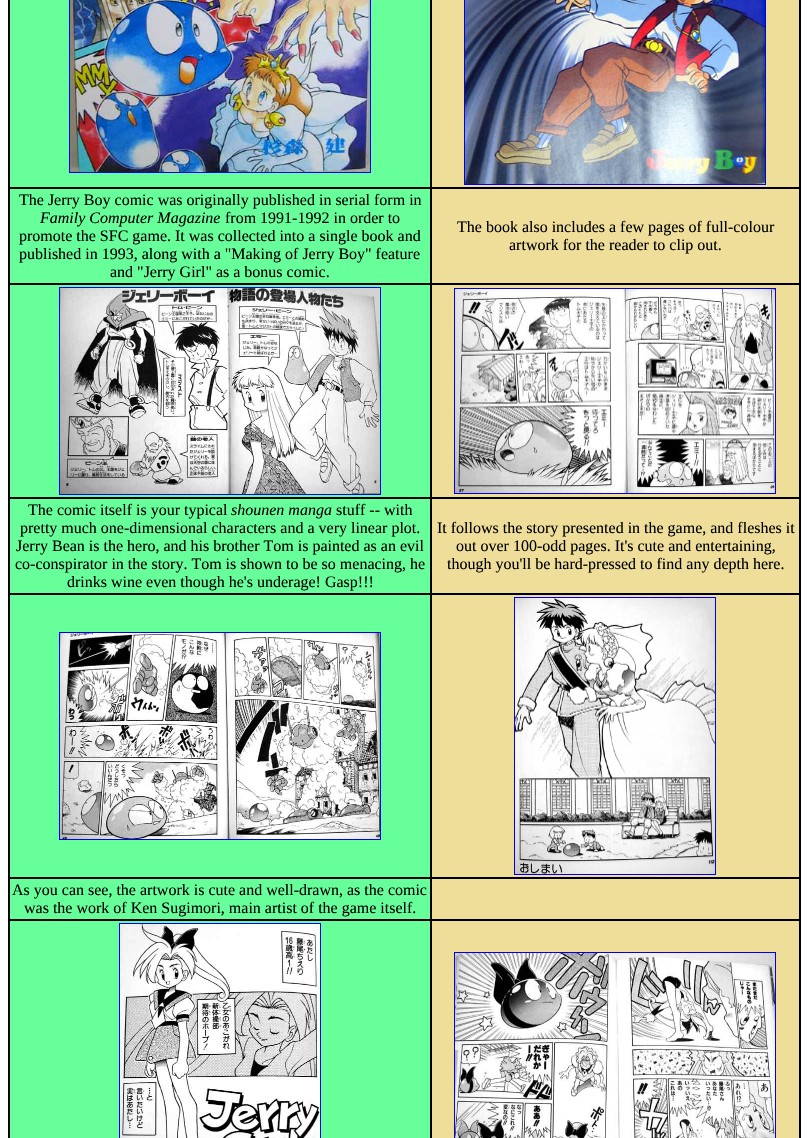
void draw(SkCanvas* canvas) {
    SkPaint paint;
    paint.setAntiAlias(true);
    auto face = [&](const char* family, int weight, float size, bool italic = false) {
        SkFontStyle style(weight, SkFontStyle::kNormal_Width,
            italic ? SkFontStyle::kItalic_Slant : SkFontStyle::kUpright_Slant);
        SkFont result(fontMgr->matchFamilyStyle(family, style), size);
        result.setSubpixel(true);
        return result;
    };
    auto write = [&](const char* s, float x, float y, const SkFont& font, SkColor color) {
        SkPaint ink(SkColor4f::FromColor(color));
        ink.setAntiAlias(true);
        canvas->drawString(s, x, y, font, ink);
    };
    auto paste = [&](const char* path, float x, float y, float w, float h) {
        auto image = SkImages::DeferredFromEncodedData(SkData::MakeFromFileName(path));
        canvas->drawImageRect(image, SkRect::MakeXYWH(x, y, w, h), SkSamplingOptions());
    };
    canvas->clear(SK_ColorWHITE);
    paint.setStyle(SkPaint::kStroke_Style);
    paint.setStrokeWidth(1);
    paint.setColor(SK_ColorBLACK);
    canvas->drawRect(SkRect::MakeXYWH(8.5f, -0.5f, 792, 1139), paint);
    paint.setStyle(SkPaint::kFill_Style);
    paint.setColor(SkColorSetRGB(102, 255, 153));
    canvas->drawRect(SkRect::MakeXYWH(9.5f, -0.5f, 421, 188), paint);
    paint.setStyle(SkPaint::kStroke_Style);
    paint.setColor(SK_ColorBLACK);
    canvas->drawRect(SkRect::MakeXYWH(9.5f, -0.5f, 421, 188), paint);
    paint.setColor(SkColorSetRGB(0, 0, 238));
    canvas->drawRect(SkRect::MakeXYWH(69.5f, -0.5f, 301, 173), paint);
    paste("pic1.png", 70, 0, 300, 172);
    paint.setStyle(SkPaint::kFill_Style);
    paint.setColor(SkColorSetRGB(238, 222, 153));
    canvas->drawRect(SkRect::MakeXYWH(431.5f, -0.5f, 368, 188), paint);
    paint.setStyle(SkPaint::kStroke_Style);
    paint.setColor(SK_ColorBLACK);
    canvas->drawRect(SkRect::MakeXYWH(431.5f, -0.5f, 368, 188), paint);
    paint.setColor(SkColorSetRGB(0, 0, 238));
    canvas->drawRect(SkRect::MakeXYWH(464.5f, -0.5f, 301, 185), paint);
    paste("pic2.png", 465, 0, 300, 184);
    paint.setStyle(SkPaint::kFill_Style);
    paint.setColor(SkColorSetRGB(102, 255, 153));
    canvas->drawRect(SkRect::MakeXYWH(9.5f, 188.5f, 421, 95), paint);
    paint.setStyle(SkPaint::kStroke_Style);
    paint.setColor(SK_ColorBLACK);
    canvas->drawRect(SkRect::MakeXYWH(9.5f, 188.5f, 421, 95), paint);
    auto kFont1 = face("Liberation Serif", 400, 16);
    write("The Jerry Boy comic was originally published in serial form in", 19, 205, kFont1, SK_ColorBLACK);
    auto kFont2 = face("Liberation Serif", 400, 16, true);
    write("Family Computer Magazine", 40, 223, kFont2, SK_ColorBLACK);
    write("from 1991-1992 in order to", 225, 223, kFont1, SK_ColorBLACK);
    write("promote the SFC game. It was collected into a single book and", 19, 241, kFont1, SK_ColorBLACK);
    write("published in 1993, along with a \"Making of Jerry Boy\" feature", 19, 259, kFont1, SK_ColorBLACK);
    write("and \"Jerry Girl\" as a bonus comic.", 110, 277, kFont1, SK_ColorBLACK);
    paint.setStyle(SkPaint::kFill_Style);
    paint.setColor(SkColorSetRGB(238, 222, 153));
    canvas->drawRect(SkRect::MakeXYWH(431.5f, 188.5f, 368, 95), paint);
    paint.setStyle(SkPaint::kStroke_Style);
    paint.setColor(SK_ColorBLACK);
    canvas->drawRect(SkRect::MakeXYWH(431.5f, 188.5f, 368, 95), paint);
    write("The book also includes a few pages of full-colour", 457, 232, kFont1, SK_ColorBLACK);
    write("artwork for the reader to clip out.", 509, 250, kFont1, SK_ColorBLACK);
    paint.setStyle(SkPaint::kFill_Style);
    paint.setColor(SkColorSetRGB(102, 255, 153));
    canvas->drawRect(SkRect::MakeXYWH(9.5f, 284.5f, 421, 213), paint);
    paint.setStyle(SkPaint::kStroke_Style);
    paint.setColor(SK_ColorBLACK);
    canvas->drawRect(SkRect::MakeXYWH(9.5f, 284.5f, 421, 213), paint);
    paint.setColor(SkColorSetRGB(0, 0, 238));
    canvas->drawRect(SkRect::MakeXYWH(59.5f, 287.5f, 321, 207), paint);
    paste("pic3.png", 60, 288, 320, 206);
    paint.setStyle(SkPaint::kFill_Style);
    paint.setColor(SkColorSetRGB(238, 222, 153));
    canvas->drawRect(SkRect::MakeXYWH(431.5f, 284.5f, 368, 213), paint);
    paint.setStyle(SkPaint::kStroke_Style);
    paint.setColor(SK_ColorBLACK);
    canvas->drawRect(SkRect::MakeXYWH(431.5f, 284.5f, 368, 213), paint);
    paint.setColor(SkColorSetRGB(0, 0, 238));
    canvas->drawRect(SkRect::MakeXYWH(454.5f, 288.5f, 321, 205), paint);
    paste("pic4.png", 455, 289, 320, 204);
    paint.setStyle(SkPaint::kFill_Style);
    paint.setColor(SkColorSetRGB(102, 255, 153));
    canvas->drawRect(SkRect::MakeXYWH(9.5f, 498.5f, 421, 95), paint);
    paint.setStyle(SkPaint::kStroke_Style);
    paint.setColor(SK_ColorBLACK);
    canvas->drawRect(SkRect::MakeXYWH(9.5f, 498.5f, 421, 95), paint);
    write("The comic itself is your typical", 28, 515, kFont1, SK_ColorBLACK);
    write("shounen manga", 231, 515, kFont2, SK_ColorBLACK);
    write("stuff -- with", 336, 515, kFont1, SK_ColorBLACK);
    write("pretty much one-dimensional characters and a very linear plot.", 20, 533, kFont1, SK_ColorBLACK);
    write("Jerry Bean is the hero, and his brother Tom is painted as an evil", 16, 551, kFont1, SK_ColorBLACK);
    write("co-conspirator in the story. Tom is shown to be so menacing, he", 15, 569, kFont1, SK_ColorBLACK);
    write("drinks wine even though he's underage! Gasp!!!", 67, 587, kFont1, SK_ColorBLACK);
    paint.setStyle(SkPaint::kFill_Style);
    paint.setColor(SkColorSetRGB(238, 222, 153));
    canvas->drawRect(SkRect::MakeXYWH(431.5f, 498.5f, 368, 95), paint);
    paint.setStyle(SkPaint::kStroke_Style);
    paint.setColor(SK_ColorBLACK);
    canvas->drawRect(SkRect::MakeXYWH(431.5f, 498.5f, 368, 95), paint);
    write("It follows the story presented in the game, and fleshes it", 437, 533, kFont1, SK_ColorBLACK);
    write("out over 100-odd pages. It's cute and entertaining,", 456, 551, kFont1, SK_ColorBLACK);
    write("though you'll be hard-pressed to find any depth here.", 447, 569, kFont1, SK_ColorBLACK);
    paint.setStyle(SkPaint::kFill_Style);
    paint.setColor(SkColorSetRGB(102, 255, 153));
    canvas->drawRect(SkRect::MakeXYWH(9.5f, 594.5f, 421, 283), paint);
    paint.setStyle(SkPaint::kStroke_Style);
    paint.setColor(SK_ColorBLACK);
    canvas->drawRect(SkRect::MakeXYWH(9.5f, 594.5f, 421, 283), paint);
    paint.setColor(SkColorSetRGB(0, 0, 238));
    canvas->drawRect(SkRect::MakeXYWH(59.5f, 632.5f, 321, 207), paint);
    paste("pic5.png", 60, 633, 320, 206);
    paint.setStyle(SkPaint::kFill_Style);
    paint.setColor(SkColorSetRGB(238, 222, 153));
    canvas->drawRect(SkRect::MakeXYWH(431.5f, 594.5f, 368, 283), paint);
    paint.setStyle(SkPaint::kStroke_Style);
    paint.setColor(SK_ColorBLACK);
    canvas->drawRect(SkRect::MakeXYWH(431.5f, 594.5f, 368, 283), paint);
    paint.setColor(SkColorSetRGB(0, 0, 238));
    canvas->drawRect(SkRect::MakeXYWH(514.5f, 597.5f, 201, 277), paint);
    paste("pic6.png", 515, 598, 200, 276);
    paint.setStyle(SkPaint::kFill_Style);
    paint.setColor(SkColorSetRGB(102, 255, 153));
    canvas->drawRect(SkRect::MakeXYWH(9.5f, 878.5f, 421, 41), paint);
    paint.setStyle(SkPaint::kStroke_Style);
    paint.setColor(SK_ColorBLACK);
    canvas->drawRect(SkRect::MakeXYWH(9.5f, 878.5f, 421, 41), paint);
    write("As you can see, the artwork is cute and well-drawn, as the comic", 12, 895, kFont1, SK_ColorBLACK);
    write("was the work of Ken Sugimori, main artist of the game itself.", 24, 913, kFont1, SK_ColorBLACK);
    paint.setStyle(SkPaint::kFill_Style);
    paint.setColor(SkColorSetRGB(238, 222, 153));
    canvas->drawRect(SkRect::MakeXYWH(431.5f, 878.5f, 368, 41), paint);
    paint.setStyle(SkPaint::kStroke_Style);
    paint.setColor(SK_ColorBLACK);
    canvas->drawRect(SkRect::MakeXYWH(431.5f, 878.5f, 368, 41), paint);
    paint.setStyle(SkPaint::kFill_Style);
    paint.setColor(SkColorSetRGB(102, 255, 153));
    canvas->drawRect(SkRect::MakeXYWH(9.5f, 920.5f, 421, 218), paint);
    paint.setStyle(SkPaint::kStroke_Style);
    paint.setColor(SK_ColorBLACK);
    canvas->drawRect(SkRect::MakeXYWH(9.5f, 920.5f, 421, 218), paint);
    paint.setColor(SkColorSetRGB(0, 0, 238));
    canvas->drawRect(SkRect::MakeXYWH(119.5f, 923.5f, 201, 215), paint);
    paste("pic7.png", 120, 924, 200, 214);
    paint.setStyle(SkPaint::kFill_Style);
    paint.setColor(SkColorSetRGB(238, 222, 153));
    canvas->drawRect(SkRect::MakeXYWH(431.5f, 920.5f, 368, 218), paint);
    paint.setStyle(SkPaint::kStroke_Style);
    paint.setColor(SK_ColorBLACK);
    canvas->drawRect(SkRect::MakeXYWH(431.5f, 920.5f, 368, 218), paint);
    paint.setColor(SkColorSetRGB(0, 0, 238));
    canvas->drawRect(SkRect::MakeXYWH(454.5f, 952.5f, 321, 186), paint);
    paste("pic8.png", 455, 953, 320, 185);
}
